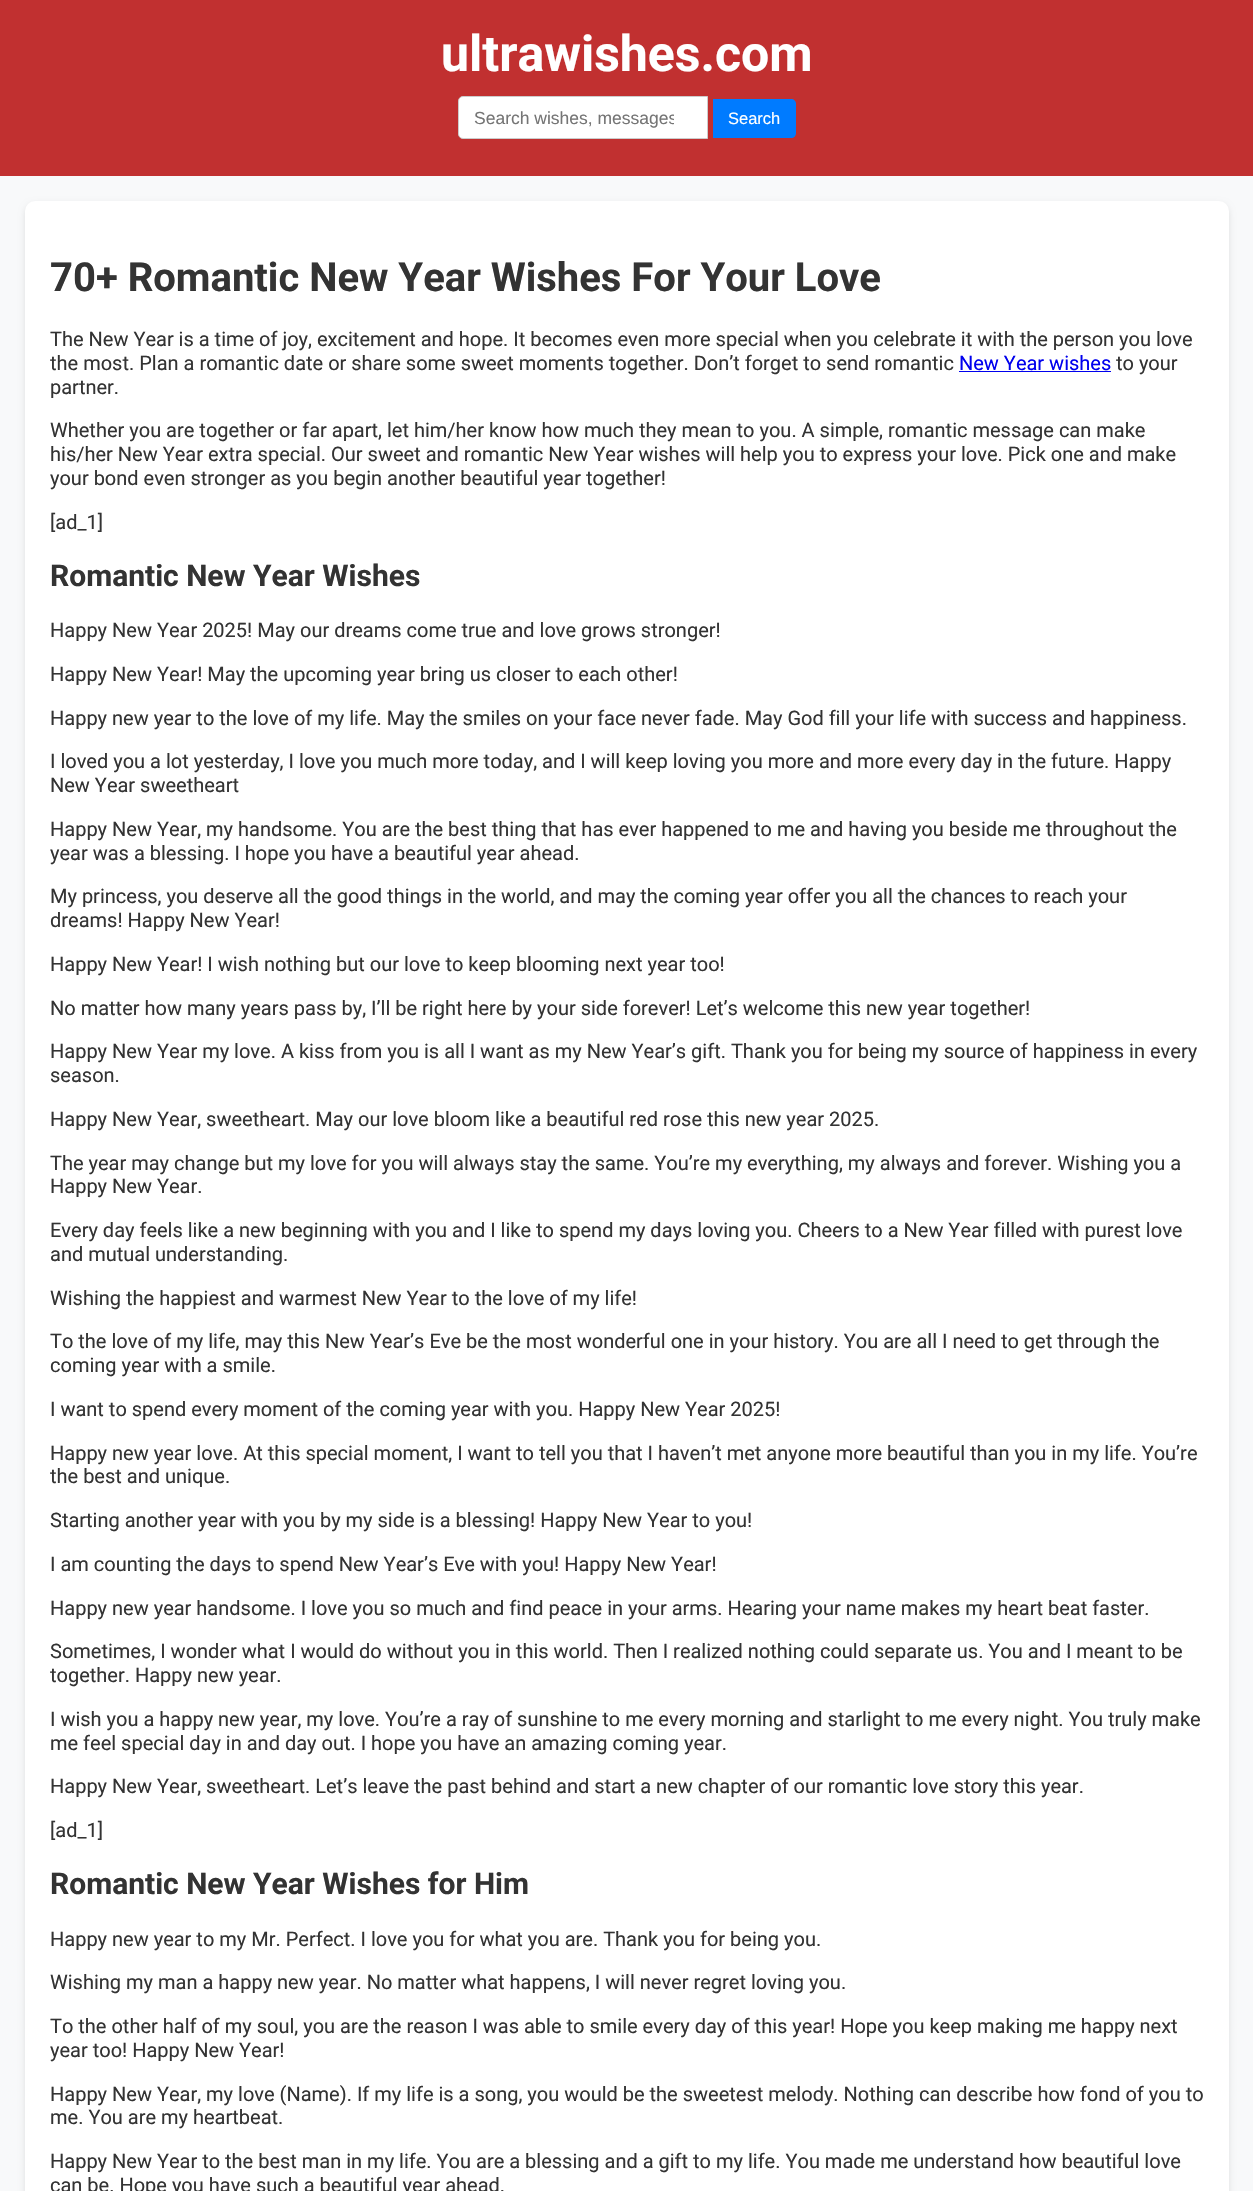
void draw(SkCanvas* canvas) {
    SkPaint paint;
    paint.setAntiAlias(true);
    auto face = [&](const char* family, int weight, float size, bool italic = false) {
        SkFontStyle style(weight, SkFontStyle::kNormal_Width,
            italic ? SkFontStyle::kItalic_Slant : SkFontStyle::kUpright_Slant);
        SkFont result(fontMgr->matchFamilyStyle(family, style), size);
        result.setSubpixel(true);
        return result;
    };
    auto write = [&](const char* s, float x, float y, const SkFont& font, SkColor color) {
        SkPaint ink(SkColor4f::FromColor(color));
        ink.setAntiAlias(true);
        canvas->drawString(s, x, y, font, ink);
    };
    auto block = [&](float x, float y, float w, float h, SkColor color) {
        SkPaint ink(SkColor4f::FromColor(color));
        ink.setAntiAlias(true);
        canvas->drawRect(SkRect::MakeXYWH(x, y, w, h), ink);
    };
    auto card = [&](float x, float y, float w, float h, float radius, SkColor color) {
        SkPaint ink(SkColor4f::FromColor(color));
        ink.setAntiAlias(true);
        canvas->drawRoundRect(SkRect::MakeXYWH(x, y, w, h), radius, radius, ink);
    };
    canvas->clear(SkColorSetRGB(248, 249, 250));
    block(0, 0, 1253, 176, SkColorSetRGB(193, 48, 48));
    auto kFont1 = face("Roboto", 700, 50);
    write("ultrawishes.com", 441, 71, kFont1, SK_ColorWHITE);
    paint.setColor(SK_ColorWHITE);
    canvas->drawPath(SkPathBuilder().moveTo(463, 96.5f).lineTo(707.5f, 96.5f).lineTo(707.5f, 138.5f).lineTo(463, 138.5f).cubicTo(460.5f, 138.5f, 458.5f, 136.5f, 458.5f, 134).lineTo(458.5f, 101).cubicTo(458.5f, 98.5f, 460.5f, 96.5f, 463, 96.5f).close().detach(), paint);
    paint.setStyle(SkPaint::kStroke_Style);
    paint.setStrokeWidth(1);
    paint.setColor(SkColorSetRGB(204, 204, 204));
    canvas->drawPath(SkPathBuilder().moveTo(463, 96.5f).lineTo(707.5f, 96.5f).lineTo(707.5f, 138.5f).lineTo(463, 138.5f).cubicTo(460.5f, 138.5f, 458.5f, 136.5f, 458.5f, 134).lineTo(458.5f, 101).cubicTo(458.5f, 98.5f, 460.5f, 96.5f, 463, 96.5f).close().detach(), paint);
    canvas->save();
    canvas->clipRect(SkRect::MakeXYWH(474, 108, 200, 20));
    auto kFont2 = face("Liberation Sans", 400, 17.5f);
    write("Search wishes, messages", 474, 124, kFont2, SkColorSetRGB(117, 117, 117));
    canvas->restore();
    paint.setStyle(SkPaint::kFill_Style);
    paint.setColor(SkColorSetRGB(0, 123, 255));
    canvas->drawPath(SkPathBuilder().moveTo(713, 99).lineTo(791, 99).cubicTo(794, 99, 796, 101, 796, 104).lineTo(796, 133).cubicTo(796, 136, 794, 138, 791, 138).lineTo(713, 138).close().detach(), paint);
    auto kFont3 = face("Liberation Sans", 400, 16.5f);
    write("Search", 728, 124, kFont3, SK_ColorWHITE);
    paint.setColor(SkColorSetARGB(26, 0, 0, 0));
    paint.setMaskFilter(SkMaskFilter::MakeBlur(kNormal_SkBlurStyle, 3));
    canvas->drawRoundRect(SkRect::MakeXYWH(25, 204, 1204, 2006), 10, 10, paint);
    paint.setMaskFilter(nullptr);
    card(25, 201, 1204, 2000, 10, SK_ColorWHITE);
    auto kFont4 = face("Roboto", 700, 40);
    write("70+ Romantic New Year Wishes For Your Love", 50, 291, kFont4, SkColorSetRGB(51, 51, 51));
    auto kFont5 = face("Roboto", 400, 20);
    write("The New Year is a time of joy, excitement and hope. It becomes even more special when you celebrate it with the person you love", 50, 346, kFont5, SkColorSetRGB(51, 51, 51));
    write("the most. Plan a romantic date or share some sweet moments together. Don’t forget to send romantic", 50, 370, kFont5, SkColorSetRGB(51, 51, 51));
    write("New Year wishes", 959, 370, kFont5, SkColorSetRGB(0, 0, 238));
    block(959, 371, 152, 1, SkColorSetRGB(0, 0, 238));
    write("to your", 1116, 370, kFont5, SkColorSetRGB(51, 51, 51));
    write("partner.", 50, 394, kFont5, SkColorSetRGB(51, 51, 51));
    write("Whether you are together or far apart, let him/her know how much they mean to you. A simple, romantic message can make", 50, 437, kFont5, SkColorSetRGB(51, 51, 51));
    write("his/her New Year extra special. Our sweet and romantic New Year wishes will help you to express your love. Pick one and make", 50, 461, kFont5, SkColorSetRGB(51, 51, 51));
    write("your bond even stronger as you begin another beautiful year together!", 50, 485, kFont5, SkColorSetRGB(51, 51, 51));
    write("[ad_1]", 50, 529, kFont5, SkColorSetRGB(51, 51, 51));
    auto kFont6 = face("Roboto", 700, 30);
    write("Romantic New Year Wishes", 50, 586, kFont6, SkColorSetRGB(51, 51, 51));
    write("Happy New Year 2025! May our dreams come true and love grows stronger!", 50, 637, kFont5, SkColorSetRGB(51, 51, 51));
    write("Happy New Year! May the upcoming year bring us closer to each other!", 50, 681, kFont5, SkColorSetRGB(51, 51, 51));
    write("Happy new year to the love of my life. May the smiles on your face never fade. May God fill your life with success and happiness.", 50, 725, kFont5, SkColorSetRGB(51, 51, 51));
    write("I loved you a lot yesterday, I love you much more today, and I will keep loving you more and more every day in the future. Happy", 50, 768, kFont5, SkColorSetRGB(51, 51, 51));
    write("New Year sweetheart", 50, 792, kFont5, SkColorSetRGB(51, 51, 51));
    write("Happy New Year, my handsome. You are the best thing that has ever happened to me and having you beside me throughout the", 50, 836, kFont5, SkColorSetRGB(51, 51, 51));
    write("year was a blessing. I hope you have a beautiful year ahead.", 50, 860, kFont5, SkColorSetRGB(51, 51, 51));
    write("My princess, you deserve all the good things in the world, and may the coming year offer you all the chances to reach your", 50, 903, kFont5, SkColorSetRGB(51, 51, 51));
    write("dreams! Happy New Year!", 50, 927, kFont5, SkColorSetRGB(51, 51, 51));
    write("Happy New Year! I wish nothing but our love to keep blooming next year too!", 50, 971, kFont5, SkColorSetRGB(51, 51, 51));
    write("No matter how many years pass by, I’ll be right here by your side forever! Let’s welcome this new year together!", 50, 1015, kFont5, SkColorSetRGB(51, 51, 51));
    write("Happy New Year my love. A kiss from you is all I want as my New Year’s gift. Thank you for being my source of happiness in every", 50, 1058, kFont5, SkColorSetRGB(51, 51, 51));
    write("season.", 50, 1082, kFont5, SkColorSetRGB(51, 51, 51));
    write("Happy New Year, sweetheart. May our love bloom like a beautiful red rose this new year 2025.", 50, 1126, kFont5, SkColorSetRGB(51, 51, 51));
    write("The year may change but my love for you will always stay the same. You’re my everything, my always and forever. Wishing you a", 50, 1170, kFont5, SkColorSetRGB(51, 51, 51));
    write("Happy New Year.", 50, 1193, kFont5, SkColorSetRGB(51, 51, 51));
    write("Every day feels like a new beginning with you and I like to spend my days loving you. Cheers to a New Year filled with purest love", 50, 1237, kFont5, SkColorSetRGB(51, 51, 51));
    write("and mutual understanding.", 50, 1261, kFont5, SkColorSetRGB(51, 51, 51));
    write("Wishing the happiest and warmest New Year to the love of my life!", 50, 1305, kFont5, SkColorSetRGB(51, 51, 51));
    write("To the love of my life, may this New Year’s Eve be the most wonderful one in your history. You are all I need to get through the", 50, 1348, kFont5, SkColorSetRGB(51, 51, 51));
    write("coming year with a smile.", 50, 1372, kFont5, SkColorSetRGB(51, 51, 51));
    write("I want to spend every moment of the coming year with you. Happy New Year 2025!", 50, 1416, kFont5, SkColorSetRGB(51, 51, 51));
    write("Happy new year love. At this special moment, I want to tell you that I haven’t met anyone more beautiful than you in my life. You’re", 50, 1460, kFont5, SkColorSetRGB(51, 51, 51));
    write("the best and unique.", 50, 1483, kFont5, SkColorSetRGB(51, 51, 51));
    write("Starting another year with you by my side is a blessing! Happy New Year to you!", 50, 1527, kFont5, SkColorSetRGB(51, 51, 51));
    write("I am counting the days to spend New Year’s Eve with you! Happy New Year!", 50, 1571, kFont5, SkColorSetRGB(51, 51, 51));
    write("Happy new year handsome. I love you so much and find peace in your arms. Hearing your name makes my heart beat faster.", 50, 1615, kFont5, SkColorSetRGB(51, 51, 51));
    write("Sometimes, I wonder what I would do without you in this world. Then I realized nothing could separate us. You and I meant to be", 50, 1658, kFont5, SkColorSetRGB(51, 51, 51));
    write("together. Happy new year.", 50, 1682, kFont5, SkColorSetRGB(51, 51, 51));
    write("I wish you a happy new year, my love. You’re a ray of sunshine to me every morning and starlight to me every night. You truly make", 50, 1726, kFont5, SkColorSetRGB(51, 51, 51));
    write("me feel special day in and day out. I hope you have an amazing coming year.", 50, 1750, kFont5, SkColorSetRGB(51, 51, 51));
    write("Happy New Year, sweetheart. Let’s leave the past behind and start a new chapter of our romantic love story this year.", 50, 1793, kFont5, SkColorSetRGB(51, 51, 51));
    write("[ad_1]", 50, 1837, kFont5, SkColorSetRGB(51, 51, 51));
    write("Romantic New Year Wishes for Him", 50, 1894, kFont6, SkColorSetRGB(51, 51, 51));
    write("Happy new year to my Mr. Perfect. I love you for what you are. Thank you for being you.", 50, 1946, kFont5, SkColorSetRGB(51, 51, 51));
    write("Wishing my man a happy new year. No matter what happens, I will never regret loving you.", 50, 1989, kFont5, SkColorSetRGB(51, 51, 51));
    write("To the other half of my soul, you are the reason I was able to smile every day of this year! Hope you keep making me happy next", 50, 2033, kFont5, SkColorSetRGB(51, 51, 51));
    write("year too! Happy New Year!", 50, 2057, kFont5, SkColorSetRGB(51, 51, 51));
    write("Happy New Year, my love (Name). If my life is a song, you would be the sweetest melody. Nothing can describe how fond of you to", 50, 2101, kFont5, SkColorSetRGB(51, 51, 51));
    write("me. You are my heartbeat.", 50, 2124, kFont5, SkColorSetRGB(51, 51, 51));
    write("Happy New Year to the best man in my life. You are a blessing and a gift to my life. You made me understand how beautiful love", 50, 2168, kFont5, SkColorSetRGB(51, 51, 51));
    write("can be. Hope you have such a beautiful year ahead.", 50, 2192, kFont5, SkColorSetRGB(51, 51, 51));
}
